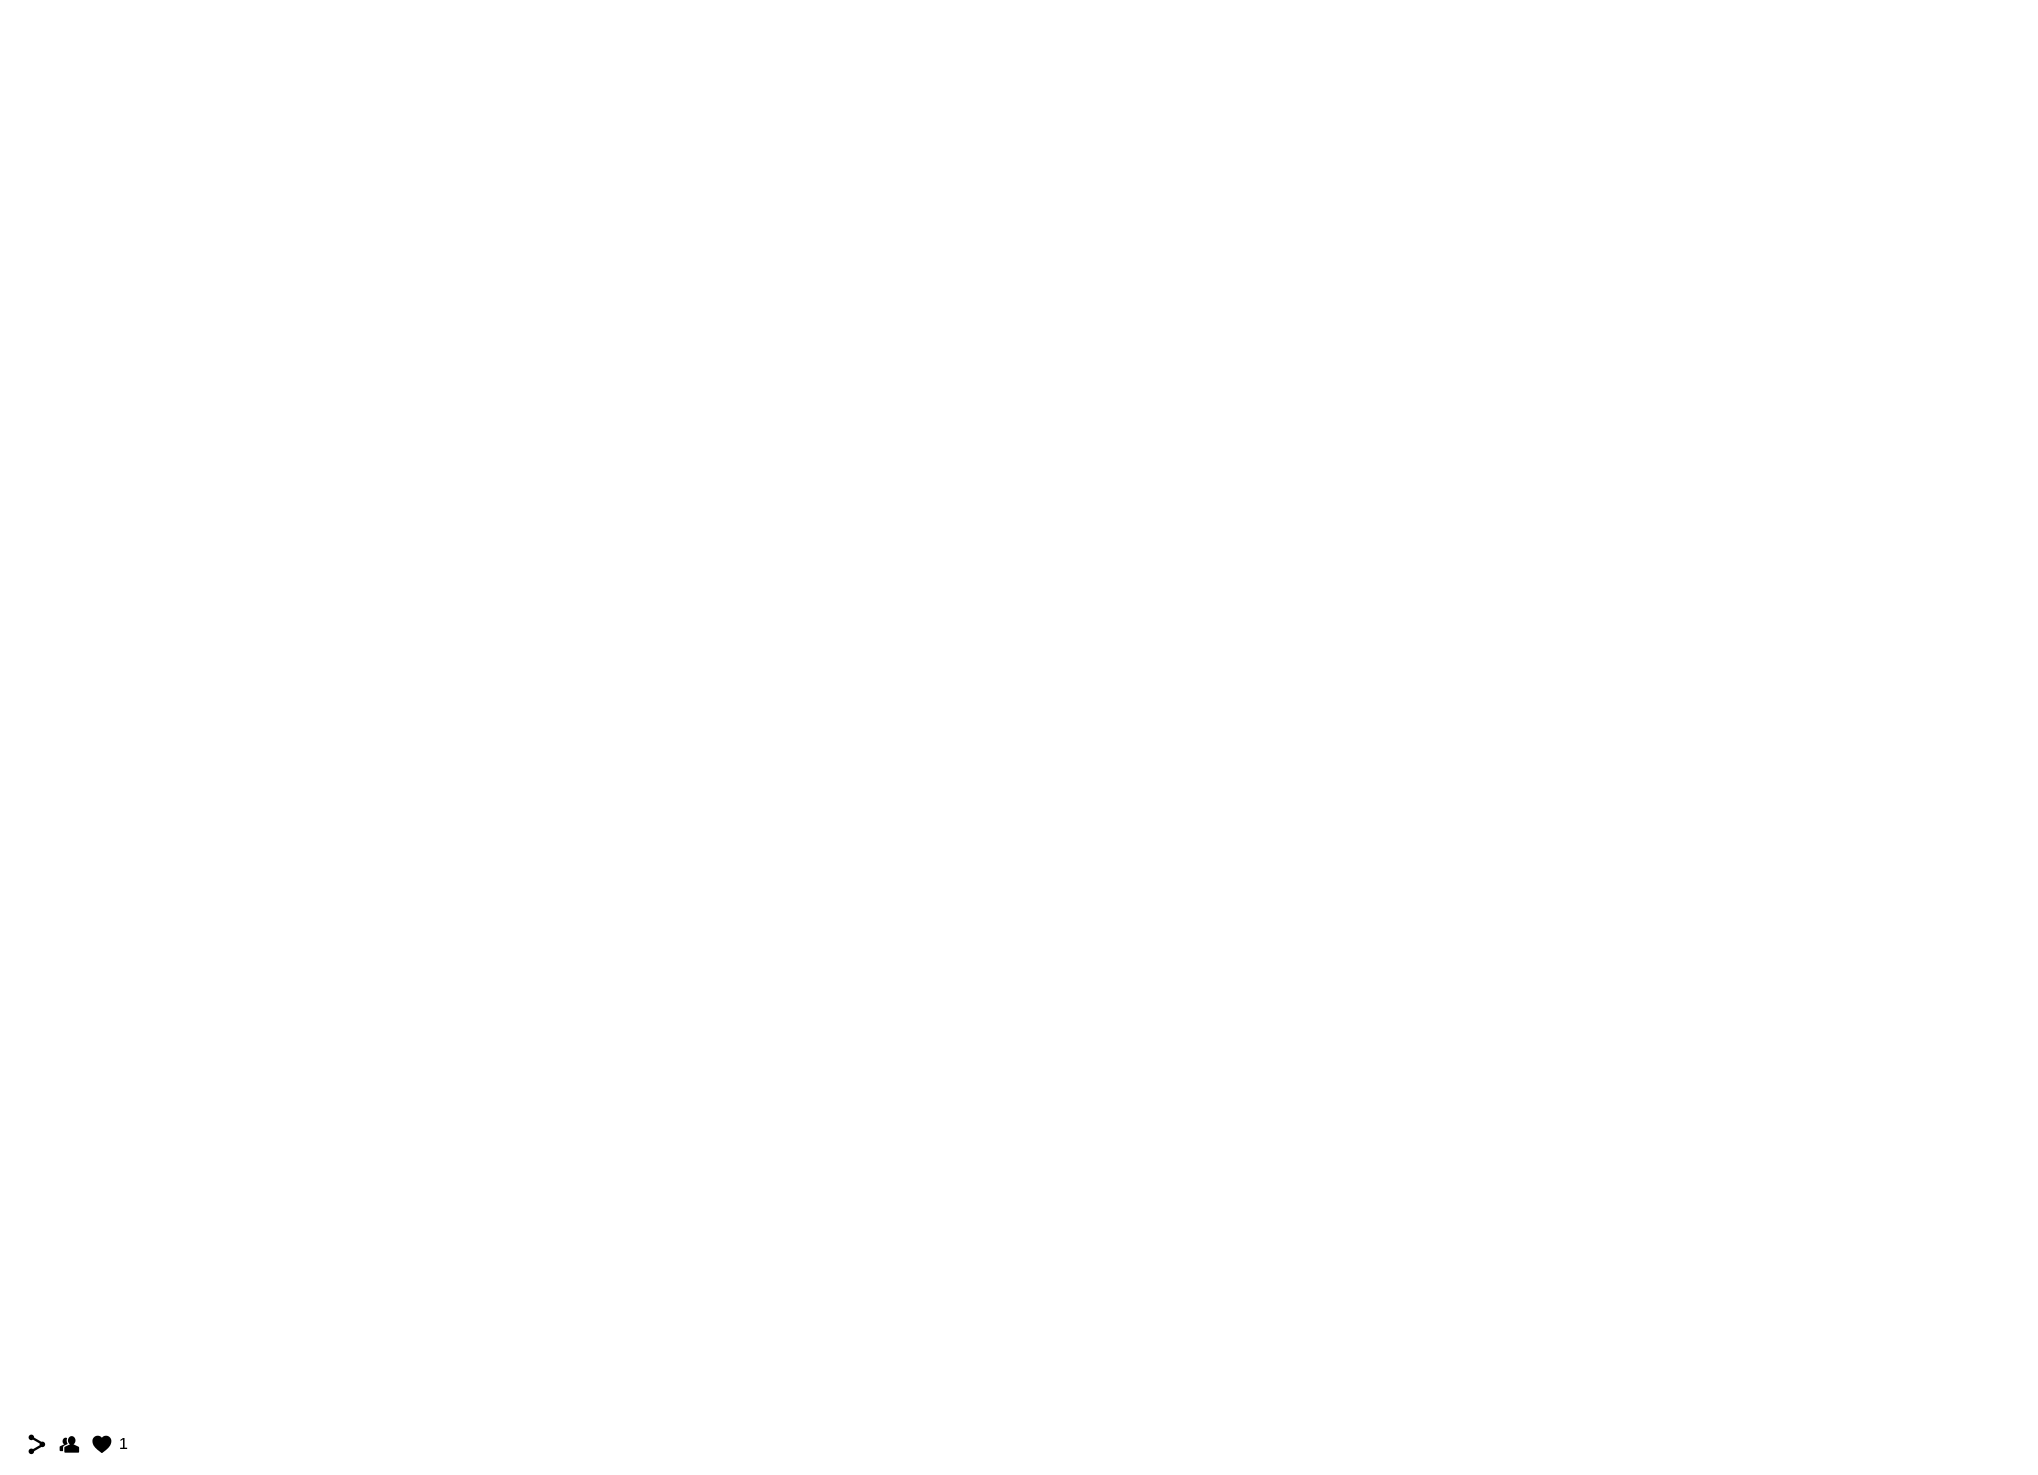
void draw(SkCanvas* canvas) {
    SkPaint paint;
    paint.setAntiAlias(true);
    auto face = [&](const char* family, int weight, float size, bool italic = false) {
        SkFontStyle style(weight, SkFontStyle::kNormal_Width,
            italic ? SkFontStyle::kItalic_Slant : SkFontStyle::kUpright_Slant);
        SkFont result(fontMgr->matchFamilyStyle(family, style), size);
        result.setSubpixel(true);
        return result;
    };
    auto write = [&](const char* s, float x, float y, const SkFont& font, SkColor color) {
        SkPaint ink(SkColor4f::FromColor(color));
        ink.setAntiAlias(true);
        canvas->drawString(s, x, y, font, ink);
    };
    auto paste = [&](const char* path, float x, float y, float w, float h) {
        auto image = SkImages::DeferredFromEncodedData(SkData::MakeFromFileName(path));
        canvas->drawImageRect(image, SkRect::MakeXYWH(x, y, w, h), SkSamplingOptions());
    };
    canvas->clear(SK_ColorWHITE);
    paste("pic1.png", 28, 1434, 18, 21);
    paste("pic2.png", 59, 1436, 21, 17);
    paste("pic3.png", 92, 1435, 20, 18);
    auto kFont1 = face("Liberation Sans", 400, 16);
    write("1", 119, 1449, kFont1, SK_ColorBLACK);
}
